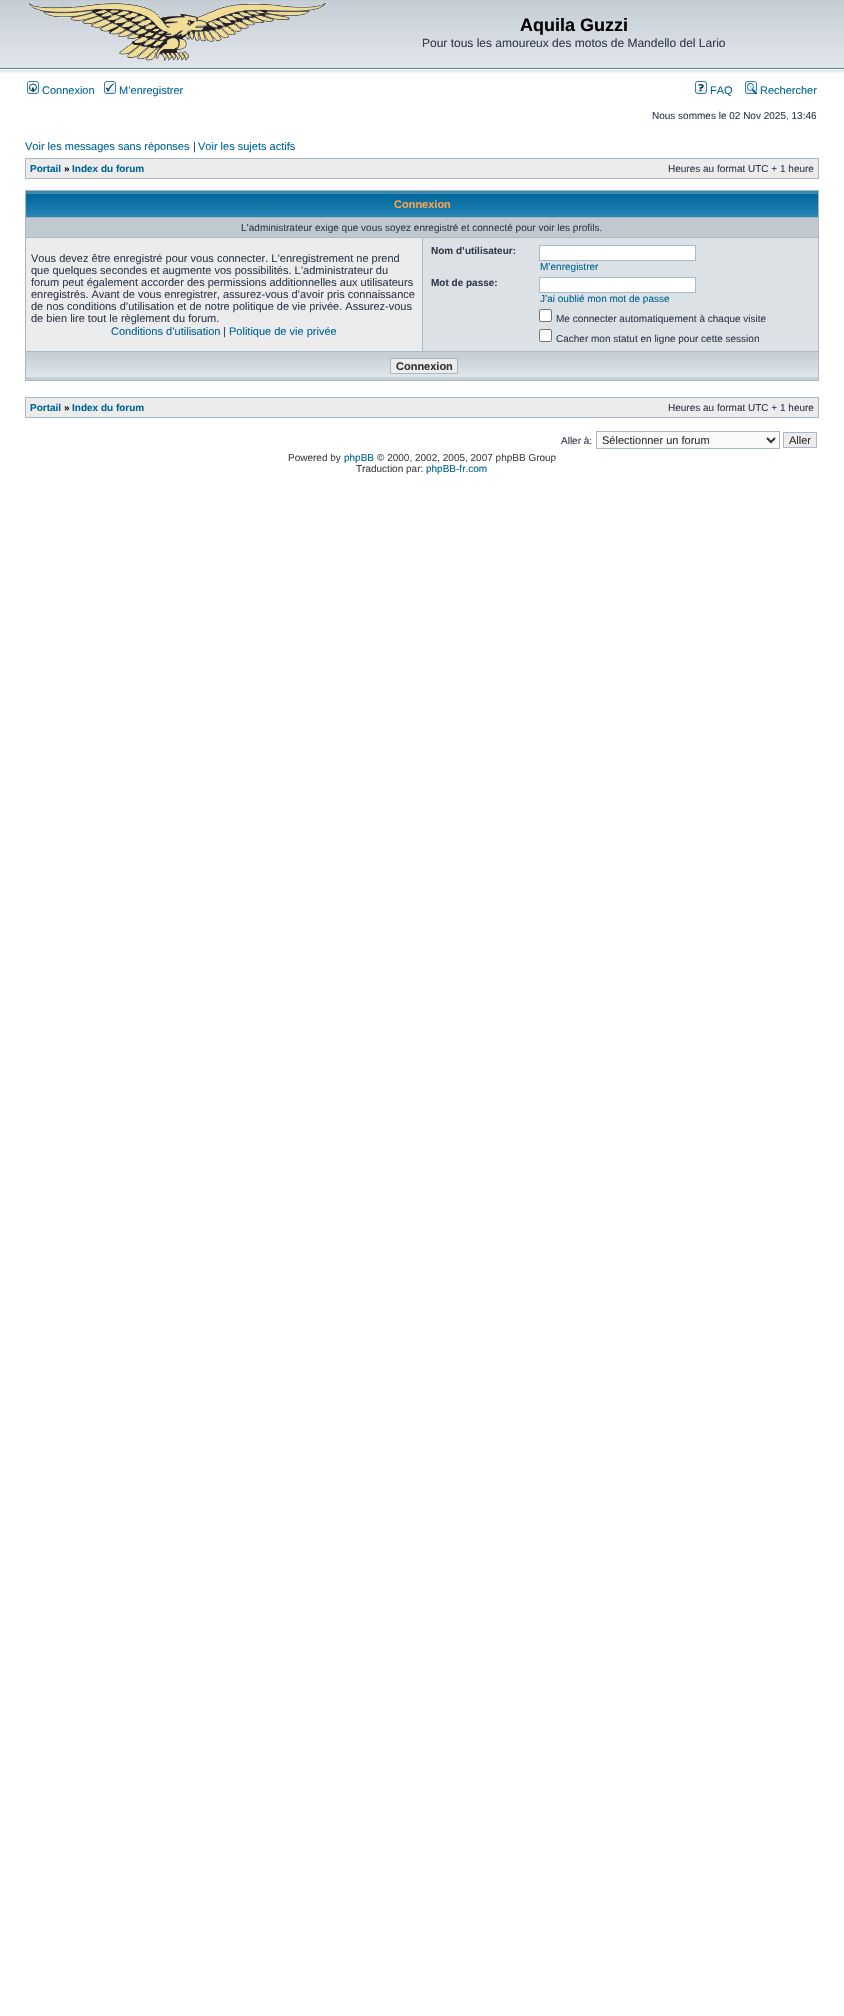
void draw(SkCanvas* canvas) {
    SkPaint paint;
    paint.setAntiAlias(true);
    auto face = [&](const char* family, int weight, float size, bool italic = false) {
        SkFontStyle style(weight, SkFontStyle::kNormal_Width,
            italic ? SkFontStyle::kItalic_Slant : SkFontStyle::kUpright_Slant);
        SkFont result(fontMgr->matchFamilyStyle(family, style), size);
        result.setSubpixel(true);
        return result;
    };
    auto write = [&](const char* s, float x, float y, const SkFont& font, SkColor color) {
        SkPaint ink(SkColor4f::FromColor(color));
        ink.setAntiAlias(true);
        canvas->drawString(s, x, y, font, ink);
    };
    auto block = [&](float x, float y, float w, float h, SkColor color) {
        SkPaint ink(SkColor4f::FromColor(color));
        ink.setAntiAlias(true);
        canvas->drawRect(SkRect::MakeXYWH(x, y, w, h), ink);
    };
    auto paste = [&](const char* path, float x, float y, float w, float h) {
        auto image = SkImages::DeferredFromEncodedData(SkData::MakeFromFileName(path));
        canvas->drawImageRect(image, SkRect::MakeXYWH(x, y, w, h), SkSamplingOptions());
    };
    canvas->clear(SK_ColorWHITE);
    block(0, 0, 844, 1, SkColorSetRGB(193, 202, 210));
    paste("pic1.png", 0, 1, 844, 78);
    paste("pic2.png", 29, 3, 297, 58);
    auto kFont1 = face("Liberation Sans", 700, 18);
    write("Aquila Guzzi", 520, 31, kFont1, SK_ColorBLACK);
    auto kFont2 = face("Liberation Sans", 400, 12);
    write("Pour tous les amoureux des motos de Mandello del Lario", 422, 47, kFont2, SkColorSetRGB(50, 61, 79));
    paste("pic3.png", 27, 81, 12, 13);
    auto kFont3 = face("Liberation Sans", 400, 11);
    write("Connexion", 42, 94, kFont3, SkColorSetRGB(0, 101, 151));
    paste("pic4.png", 104, 81, 12, 13);
    write("M’enregistrer", 119, 94, kFont3, SkColorSetRGB(0, 101, 151));
    paste("pic5.png", 695, 81, 12, 13);
    write("FAQ", 710, 94, kFont3, SkColorSetRGB(0, 101, 151));
    paste("pic6.png", 745, 81, 12, 13);
    write("Rechercher", 760, 94, kFont3, SkColorSetRGB(0, 101, 151));
    auto kFont4 = face("Liberation Sans", 400, 10);
    write("Nous sommes le 02 Nov 2025, 13:46", 652, 119, kFont4, SkColorSetRGB(50, 61, 79));
    write("Voir les messages sans réponses", 25, 150, kFont3, SkColorSetRGB(0, 101, 151));
    write("|", 193, 150, kFont3, SkColorSetRGB(50, 61, 79));
    write("Voir les sujets actifs", 198, 150, kFont3, SkColorSetRGB(0, 101, 151));
    block(25, 158, 794, 21, SkColorSetRGB(169, 184, 194));
    block(26, 159, 792, 19, SkColorSetRGB(236, 236, 236));
    auto kFont5 = face("Liberation Sans", 700, 10);
    write("Portail", 30, 172, kFont5, SkColorSetRGB(0, 101, 151));
    write("»", 64, 172, kFont5, SK_ColorBLACK);
    write("Index du forum", 72, 172, kFont5, SkColorSetRGB(0, 101, 151));
    write("Heures au format UTC + 1 heure", 668, 172, kFont4, SkColorSetRGB(50, 61, 79));
    block(25, 190, 794, 191, SkColorSetRGB(169, 184, 194));
    paste("pic7.png", 26, 191, 792, 26);
    auto kFont6 = face("Liberation Sans", 700, 11);
    write("Connexion", 394, 208, kFont6, SkColorSetRGB(255, 163, 79));
    block(26, 218, 792, 19, SkColorSetRGB(192, 200, 208));
    write("L’administrateur exige que vous soyez enregistré et connecté pour voir les profils.", 241, 231, kFont4, SkColorSetRGB(50, 61, 79));
    block(26, 238, 396, 113, SkColorSetRGB(236, 236, 236));
    write("Vous devez être enregistré pour vous connecter. L’enregistrement ne prend", 31, 262, kFont3, SkColorSetRGB(50, 61, 79));
    write("que quelques secondes et augmente vos possibilités. L’administrateur du", 31, 274, kFont3, SkColorSetRGB(50, 61, 79));
    write("forum peut également accorder des permissions additionnelles aux utilisateurs", 31, 286, kFont3, SkColorSetRGB(50, 61, 79));
    write("enregistrés. Avant de vous enregistrer, assurez-vous d’avoir pris connaissance", 31, 298, kFont3, SkColorSetRGB(50, 61, 79));
    write("de nos conditions d’utilisation et de notre politique de vie privée. Assurez-vous", 31, 310, kFont3, SkColorSetRGB(50, 61, 79));
    write("de bien lire tout le règlement du forum.", 31, 322, kFont3, SkColorSetRGB(50, 61, 79));
    write("Conditions d’utilisation", 111, 335, kFont3, SkColorSetRGB(0, 101, 151));
    write("|", 223, 335, kFont3, SkColorSetRGB(50, 61, 79));
    write("Politique de vie privée", 229, 335, kFont3, SkColorSetRGB(0, 101, 151));
    block(423, 238, 395, 113, SkColorSetRGB(220, 225, 229));
    write("Nom d’utilisateur:", 431, 254, kFont5, SkColorSetRGB(50, 61, 79));
    paint.setColor(SK_ColorWHITE);
    canvas->drawRect(SkRect::MakeXYWH(539.5f, 245.5f, 156, 15), paint);
    paint.setStyle(SkPaint::kStroke_Style);
    paint.setStrokeWidth(1);
    paint.setColor(SkColorSetRGB(169, 184, 194));
    canvas->drawRect(SkRect::MakeXYWH(539.5f, 245.5f, 156, 15), paint);
    write("M’enregistrer", 540, 270, kFont4, SkColorSetRGB(0, 101, 151));
    write("Mot de passe:", 431, 286, kFont5, SkColorSetRGB(50, 61, 79));
    paint.setStyle(SkPaint::kFill_Style);
    paint.setColor(SK_ColorWHITE);
    canvas->drawRect(SkRect::MakeXYWH(539.5f, 277.5f, 156, 15), paint);
    paint.setStyle(SkPaint::kStroke_Style);
    paint.setColor(SkColorSetRGB(169, 184, 194));
    canvas->drawRect(SkRect::MakeXYWH(539.5f, 277.5f, 156, 15), paint);
    write("J’ai oublié mon mot de passe", 540, 302, kFont4, SkColorSetRGB(0, 101, 151));
    paint.setStyle(SkPaint::kFill_Style);
    paint.setColor(SK_ColorWHITE);
    canvas->drawRoundRect(SkRect::MakeXYWH(539.5f, 309.5f, 12, 12), 1.5f, 1.5f, paint);
    paint.setStyle(SkPaint::kStroke_Style);
    paint.setColor(SkColorSetRGB(118, 118, 118));
    canvas->drawRoundRect(SkRect::MakeXYWH(539.5f, 309.5f, 12, 12), 1.5f, 1.5f, paint);
    write("Me connecter automatiquement à chaque visite", 556, 322, kFont4, SkColorSetRGB(50, 61, 79));
    paint.setStyle(SkPaint::kFill_Style);
    paint.setColor(SK_ColorWHITE);
    canvas->drawRoundRect(SkRect::MakeXYWH(539.5f, 329.5f, 12, 12), 1.5f, 1.5f, paint);
    paint.setStyle(SkPaint::kStroke_Style);
    paint.setColor(SkColorSetRGB(118, 118, 118));
    canvas->drawRoundRect(SkRect::MakeXYWH(539.5f, 329.5f, 12, 12), 1.5f, 1.5f, paint);
    write("Cacher mon statut en ligne pour cette session", 556, 342, kFont4, SkColorSetRGB(50, 61, 79));
    block(26, 352, 792, 28, SkColorSetRGB(199, 208, 215));
    paste("pic8.png", 26, 358, 792, 19);
    paint.setStyle(SkPaint::kFill_Style);
    paint.setColor(SkColorSetRGB(236, 236, 236));
    canvas->drawRect(SkRect::MakeXYWH(390.5f, 358.5f, 67, 15), paint);
    paint.setStyle(SkPaint::kStroke_Style);
    paint.setColor(SkColorSetRGB(169, 184, 194));
    canvas->drawRect(SkRect::MakeXYWH(390.5f, 358.5f, 67, 15), paint);
    write("Connexion", 396, 370, kFont6, SkColorSetRGB(51, 51, 51));
    block(25, 397, 794, 21, SkColorSetRGB(169, 184, 194));
    block(26, 398, 792, 19, SkColorSetRGB(236, 236, 236));
    write("Portail", 30, 411, kFont5, SkColorSetRGB(0, 101, 151));
    write("»", 64, 411, kFont5, SK_ColorBLACK);
    write("Index du forum", 72, 411, kFont5, SkColorSetRGB(0, 101, 151));
    write("Heures au format UTC + 1 heure", 668, 411, kFont4, SkColorSetRGB(50, 61, 79));
    write("Aller à:", 561, 444, kFont4, SkColorSetRGB(50, 61, 79));
    paint.setStyle(SkPaint::kFill_Style);
    paint.setColor(SkColorSetRGB(250, 250, 250));
    canvas->drawRect(SkRect::MakeXYWH(596.5f, 431.5f, 183, 17), paint);
    paint.setStyle(SkPaint::kStroke_Style);
    paint.setColor(SkColorSetRGB(169, 184, 194));
    canvas->drawRect(SkRect::MakeXYWH(596.5f, 431.5f, 183, 17), paint);
    paint.setStrokeWidth(2);
    paint.setColor(SkColorSetRGB(51, 51, 51));
    canvas->drawPath(SkPathBuilder().moveTo(767, 438).lineTo(771, 442).lineTo(775, 438).detach(), paint);
    write("Sélectionner un forum", 602, 444, kFont3, SkColorSetRGB(51, 51, 51));
    paint.setStyle(SkPaint::kFill_Style);
    paint.setColor(SkColorSetRGB(236, 236, 236));
    canvas->drawRect(SkRect::MakeXYWH(783.5f, 432.5f, 33, 15), paint);
    paint.setStyle(SkPaint::kStroke_Style);
    paint.setStrokeWidth(1);
    paint.setColor(SkColorSetRGB(169, 184, 194));
    canvas->drawRect(SkRect::MakeXYWH(783.5f, 432.5f, 33, 15), paint);
    write("Aller", 789, 444, kFont3, SkColorSetRGB(51, 51, 51));
    write("Powered by", 288, 461, kFont4, SkColorSetRGB(68, 68, 68));
    write("phpBB", 344, 461, kFont4, SkColorSetRGB(0, 101, 151));
    write("© 2000, 2002, 2005, 2007 phpBB Group", 377, 461, kFont4, SkColorSetRGB(68, 68, 68));
    write("Traduction par:", 356, 472, kFont4, SkColorSetRGB(68, 68, 68));
    write("phpBB-fr.com", 426, 472, kFont4, SkColorSetRGB(0, 101, 151));
}
